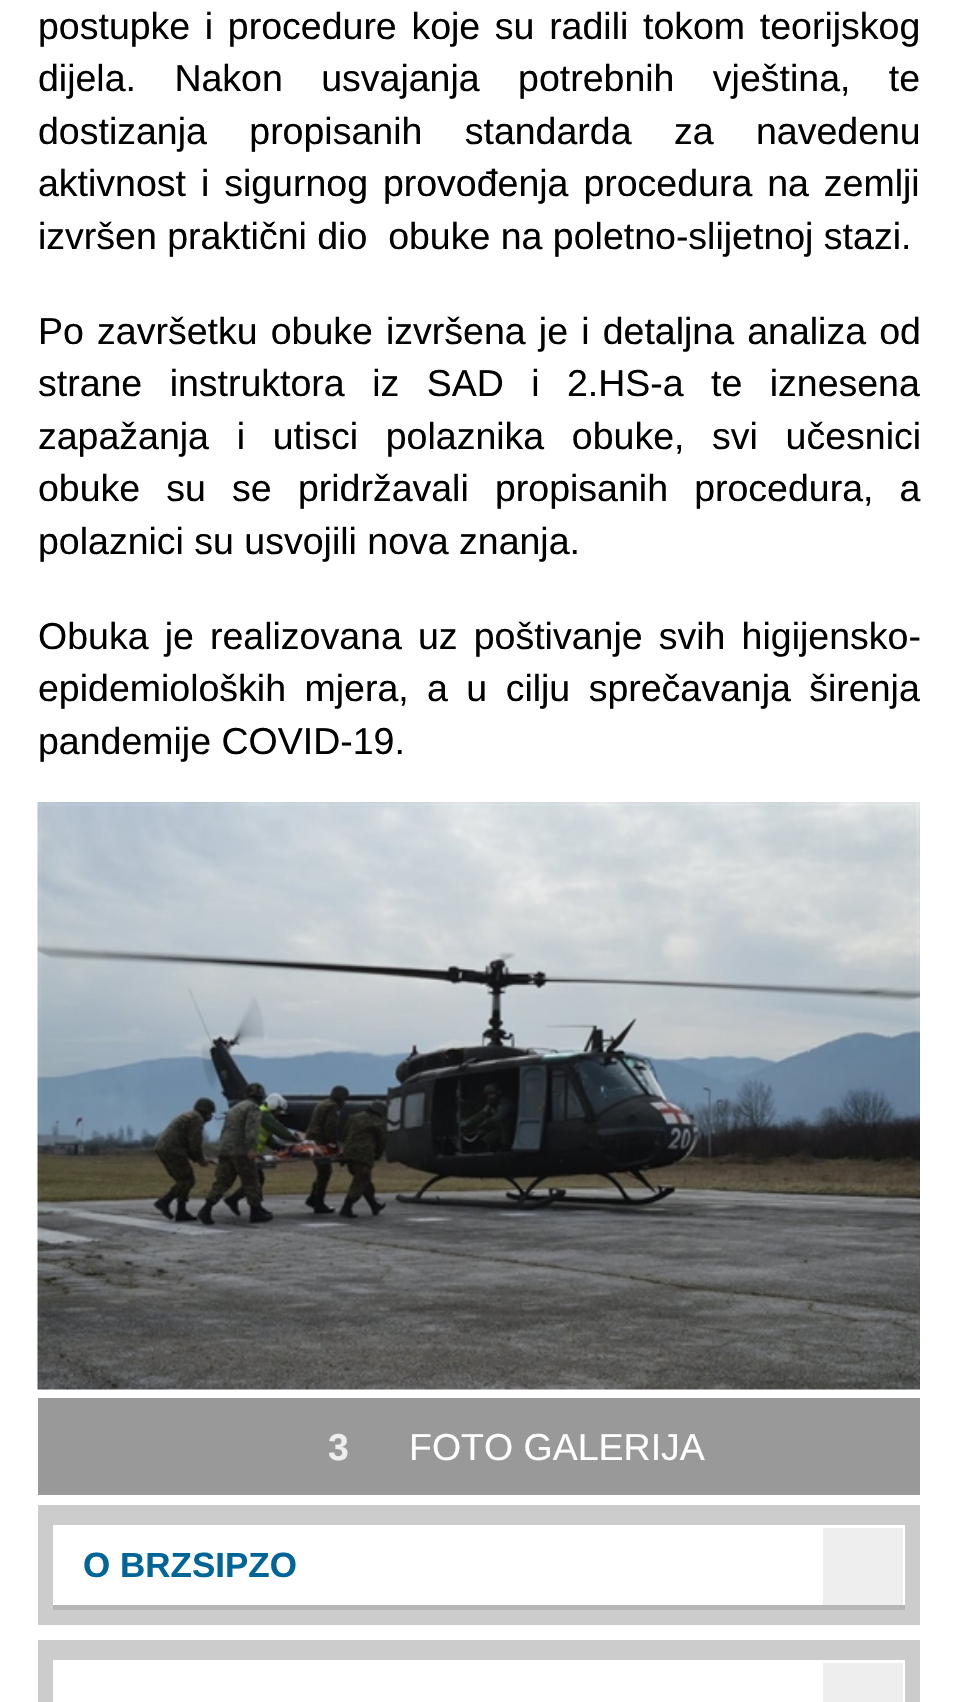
void draw(SkCanvas* canvas) {
    SkPaint paint;
    paint.setAntiAlias(true);
    auto face = [&](const char* family, int weight, float size, bool italic = false) {
        SkFontStyle style(weight, SkFontStyle::kNormal_Width,
            italic ? SkFontStyle::kItalic_Slant : SkFontStyle::kUpright_Slant);
        SkFont result(fontMgr->matchFamilyStyle(family, style), size);
        result.setSubpixel(true);
        return result;
    };
    auto write = [&](const char* s, float x, float y, const SkFont& font, SkColor color) {
        SkPaint ink(SkColor4f::FromColor(color));
        ink.setAntiAlias(true);
        canvas->drawString(s, x, y, font, ink);
    };
    auto writeSpaced = [&](const char* s, float x, float y, const SkFont& font, const SkPaint& ink, float letter, float word) {
        std::vector<SkGlyphID> glyphs(font.countText(s, strlen(s), SkTextEncoding::kUTF8));
        std::vector<float> xs(glyphs.size());
        font.textToGlyphs(s, strlen(s), SkTextEncoding::kUTF8, glyphs);
        font.getXPos(glyphs, xs, x);
        float extra = 0;
        for (size_t i = 0; i < glyphs.size(); i++) {
            xs[i] += extra;
            extra += letter + word * (glyphs[i] == font.unicharToGlyph(' '));
        }
        canvas->drawTextBlob(SkTextBlob::MakeFromPosHGlyphs(glyphs, xs, y, font), 0, 0, ink);
    };
    auto block = [&](float x, float y, float w, float h, SkColor color) {
        SkPaint ink(SkColor4f::FromColor(color));
        ink.setAntiAlias(true);
        canvas->drawRect(SkRect::MakeXYWH(x, y, w, h), ink);
    };
    auto paste = [&](const char* path, float x, float y, float w, float h) {
        auto image = SkImages::DeferredFromEncodedData(SkData::MakeFromFileName(path));
        canvas->drawImageRect(image, SkRect::MakeXYWH(x, y, w, h), SkSamplingOptions());
    };
    canvas->clear(SK_ColorWHITE);
    auto kFont1 = face("Liberation Sans", 400, 37.5f);
    paint.setColor(SK_ColorBLACK);
    writeSpaced("postupke i procedure koje su radili tokom teorijskog", 38, 39, kFont1, paint, 0, 4.25f);
    writeSpaced("dijela. Nakon usvajanja potrebnih vještina, te", 38, 91, kFont1, paint, 0, 28);
    writeSpaced("dostizanja propisanih standarda za navedenu", 38, 144, kFont1, paint, 0, 32);
    writeSpaced("aktivnost i sigurnog provođenja procedura na zemlji", 38, 196, kFont1, paint, 0, 4.5f);
    write("izvršen praktični dio  obuke na poletno-slijetnoj stazi.", 38, 249, kFont1, SK_ColorBLACK);
    writeSpaced("Po završetku obuke izvršena je i detaljna analiza od", 38, 344, kFont1, paint, 0, 2.75f);
    writeSpaced("strane instruktora iz SAD i 2.HS-a te iznesena", 38, 396, kFont1, paint, 0, 17);
    writeSpaced("zapažanja i utisci polaznika obuke, svi učesnici", 38, 449, kFont1, paint, 0, 17.25f);
    writeSpaced("obuke su se pridržavali propisanih procedura, a", 38, 501, kFont1, paint, 0, 15.75f);
    write("polaznici su usvojili nova znanja.", 38, 554, kFont1, SK_ColorBLACK);
    writeSpaced("Obuka je realizovana uz poštivanje svih higijensko-", 38, 649, kFont1, paint, 0, 5.75f);
    writeSpaced("epidemioloških mjera, a u cilju sprečavanja širenja", 38, 701, kFont1, paint, 0, 8);
    write("pandemije COVID-19.", 38, 754, kFont1, SK_ColorBLACK);
    paste("pic1.png", 37, 802, 883, 588);
    block(38, 1398, 882, 97, SkColorSetRGB(153, 153, 153));
    auto kFont2 = face("Liberation Sans", 700, 37.5f);
    write("3", 328, 1460, kFont2, SkColorSetRGB(238, 238, 238));
    write("FOTO GALERIJA", 409, 1460, kFont1, SK_ColorWHITE);
    block(38, 1505, 882, 120, SkColorSetRGB(204, 204, 204));
    block(53, 1525, 852, 80, SK_ColorWHITE);
    block(53, 1605, 852, 5, SkColorSetRGB(182, 182, 182));
    auto kFont3 = face("Liberation Sans", 700, 35);
    write("O BRZSIPZO", 83, 1577, kFont3, SkColorSetRGB(0, 102, 153));
    block(823, 1528, 80, 77, SkColorSetRGB(238, 238, 238));
    block(38, 1640, 882, 62, SkColorSetRGB(204, 204, 204));
    block(53, 1660, 852, 42, SK_ColorWHITE);
    block(823, 1663, 80, 39, SkColorSetRGB(238, 238, 238));
}
